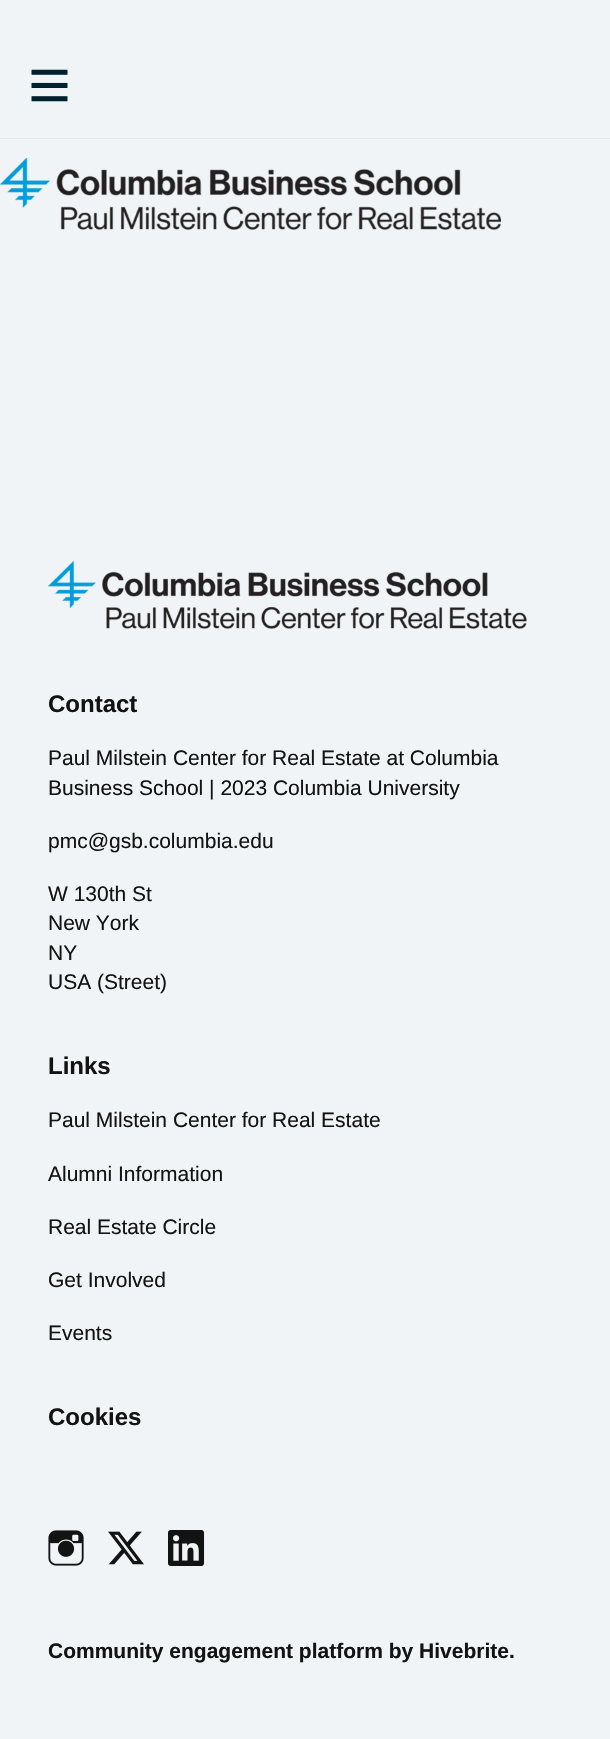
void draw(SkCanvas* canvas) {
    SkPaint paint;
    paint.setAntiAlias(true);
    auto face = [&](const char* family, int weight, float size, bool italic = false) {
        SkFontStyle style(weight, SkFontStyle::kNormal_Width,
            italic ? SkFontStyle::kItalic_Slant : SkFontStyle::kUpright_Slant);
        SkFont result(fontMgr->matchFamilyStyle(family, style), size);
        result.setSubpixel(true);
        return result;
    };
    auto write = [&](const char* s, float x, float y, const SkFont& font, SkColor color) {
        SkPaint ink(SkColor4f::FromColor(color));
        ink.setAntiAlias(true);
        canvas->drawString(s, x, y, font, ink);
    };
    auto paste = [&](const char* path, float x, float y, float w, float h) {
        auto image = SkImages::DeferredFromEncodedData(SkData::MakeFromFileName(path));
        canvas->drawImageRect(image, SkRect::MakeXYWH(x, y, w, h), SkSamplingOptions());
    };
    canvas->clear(SkColorSetRGB(241, 244, 247));
    canvas->save();
    canvas->clipRect(SkRect::MakeXYWH(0, 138, 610, 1));
    paint.setColor(SkColorSetARGB(38, 0, 0, 0));
    paint.setMaskFilter(SkMaskFilter::MakeBlur(kNormal_SkBlurStyle, 1));
    canvas->drawRect(SkRect::MakeXYWH(0, 0, 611, 138), paint);
    paint.setMaskFilter(nullptr);
    canvas->restore();
    paste("pic1.png", 31, 69, 37, 33);
    paste("pic2.png", 0, 158, 501, 72);
    paste("pic3.png", 48, 561, 479, 68);
    auto kFont1 = face("Liberation Sans", 700, 24);
    write("Contact", 48, 712, kFont1, SkColorSetRGB(18, 19, 19));
    auto kFont2 = face("Liberation Sans", 400, 21);
    write("Paul Milstein Center for Real Estate at Columbia", 48, 765, kFont2, SkColorSetRGB(18, 19, 19));
    write("Business School | 2023 Columbia University", 48, 795, kFont2, SkColorSetRGB(18, 19, 19));
    write("pmc@gsb.columbia.edu", 48, 848, kFont2, SkColorSetRGB(18, 19, 19));
    write("W 130th St", 48, 901, kFont2, SkColorSetRGB(18, 19, 19));
    write("New York", 48, 930, kFont2, SkColorSetRGB(18, 19, 19));
    write("NY", 48, 960, kFont2, SkColorSetRGB(18, 19, 19));
    write("USA (Street)", 48, 989, kFont2, SkColorSetRGB(18, 19, 19));
    write("Links", 48, 1074, kFont1, SkColorSetRGB(18, 19, 19));
    write("Paul Milstein Center for Real Estate", 48, 1127, kFont2, SkColorSetRGB(18, 19, 19));
    write("Alumni Information", 48, 1181, kFont2, SkColorSetRGB(18, 19, 19));
    write("Real Estate Circle", 48, 1234, kFont2, SkColorSetRGB(18, 19, 19));
    write("Get Involved", 48, 1287, kFont2, SkColorSetRGB(18, 19, 19));
    write("Events", 48, 1340, kFont2, SkColorSetRGB(18, 19, 19));
    write("Cookies", 48, 1425, kFont1, SkColorSetRGB(18, 19, 19));
    paste("pic4.png", 48, 1530, 36, 36);
    paste("pic5.png", 108, 1531, 36, 34);
    paste("pic6.png", 168, 1530, 37, 36);
    auto kFont3 = face("Liberation Sans", 700, 21);
    write("Community engagement platform by Hivebrite.", 48, 1658, kFont3, SkColorSetRGB(18, 19, 19));
}
